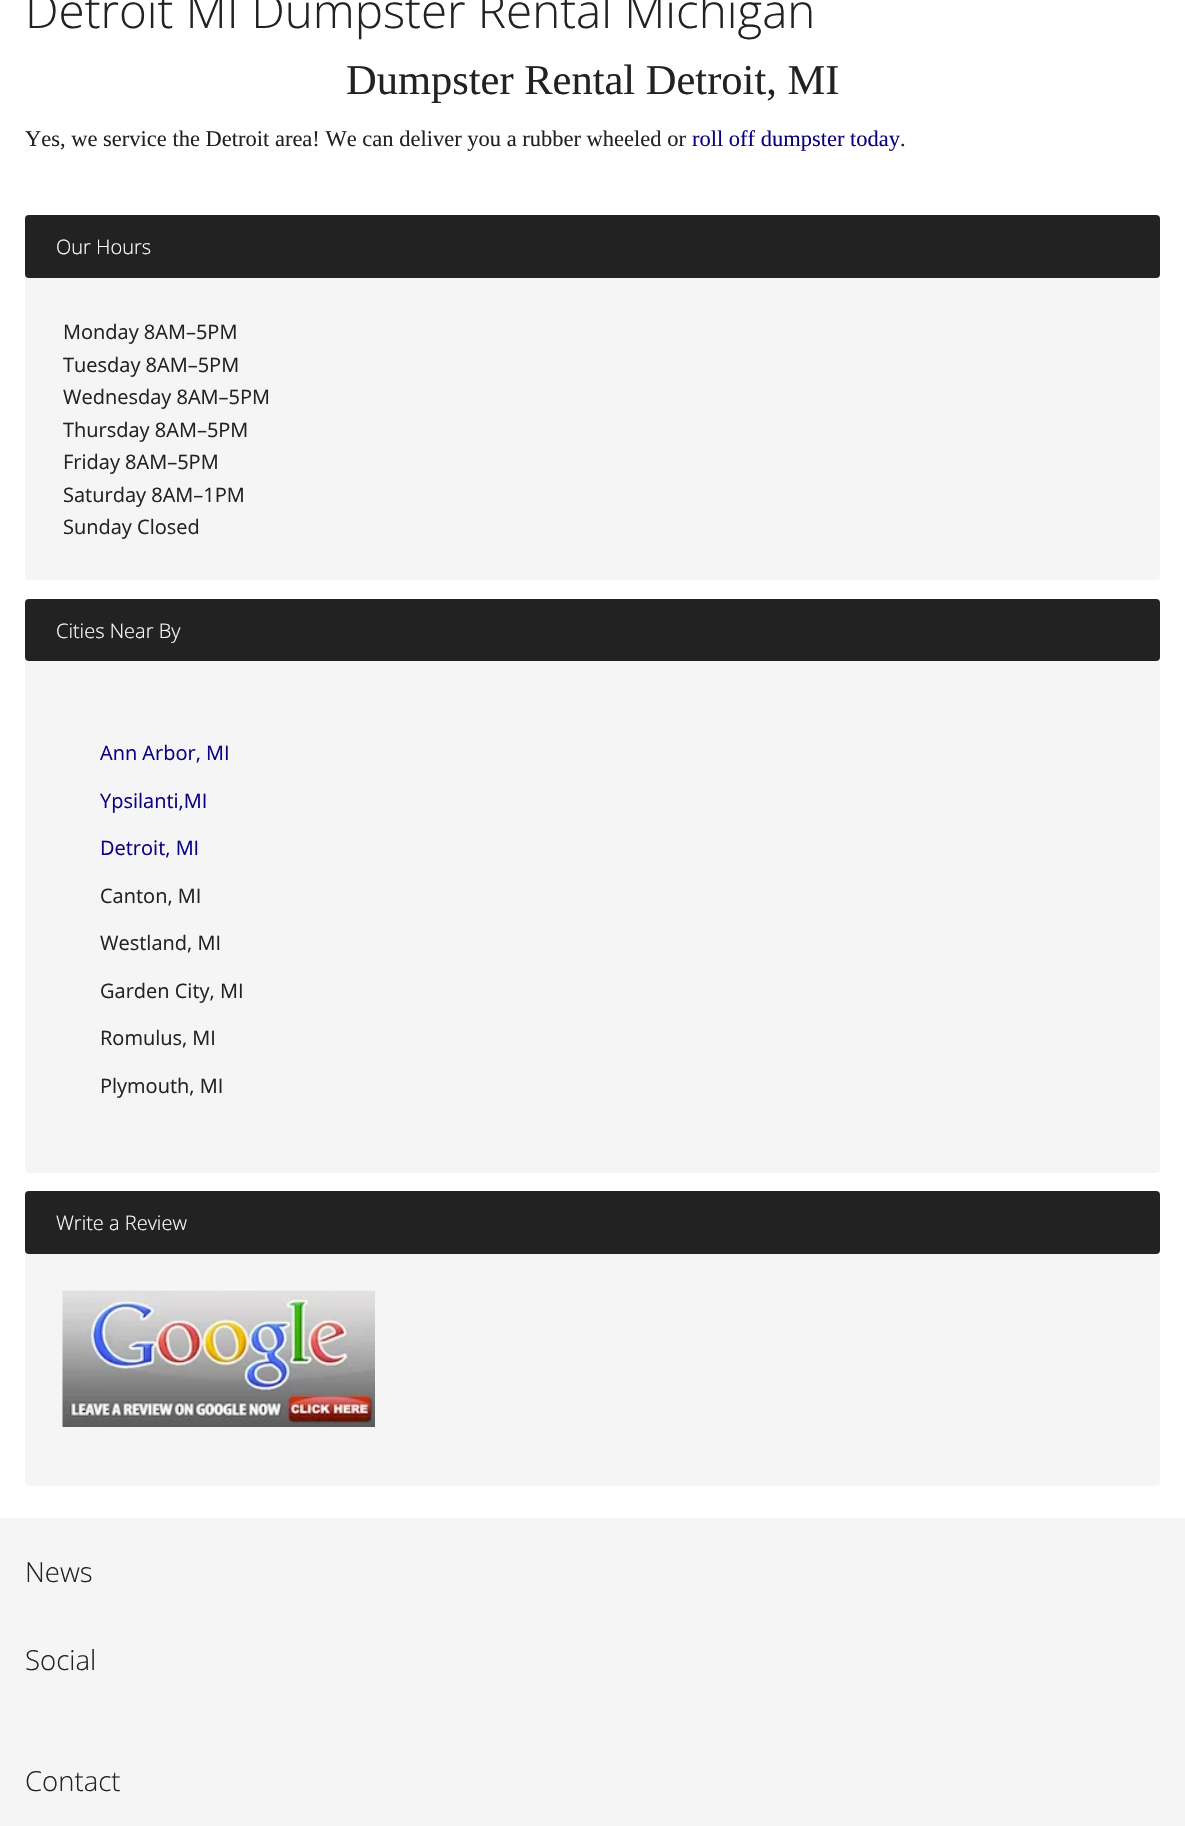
void draw(SkCanvas* canvas) {
    SkPaint paint;
    paint.setAntiAlias(true);
    auto face = [&](const char* family, int weight, float size, bool italic = false) {
        SkFontStyle style(weight, SkFontStyle::kNormal_Width,
            italic ? SkFontStyle::kItalic_Slant : SkFontStyle::kUpright_Slant);
        SkFont result(fontMgr->matchFamilyStyle(family, style), size);
        result.setSubpixel(true);
        return result;
    };
    auto write = [&](const char* s, float x, float y, const SkFont& font, SkColor color) {
        SkPaint ink(SkColor4f::FromColor(color));
        ink.setAntiAlias(true);
        canvas->drawString(s, x, y, font, ink);
    };
    auto block = [&](float x, float y, float w, float h, SkColor color) {
        SkPaint ink(SkColor4f::FromColor(color));
        ink.setAntiAlias(true);
        canvas->drawRect(SkRect::MakeXYWH(x, y, w, h), ink);
    };
    auto card = [&](float x, float y, float w, float h, float radius, SkColor color) {
        SkPaint ink(SkColor4f::FromColor(color));
        ink.setAntiAlias(true);
        canvas->drawRoundRect(SkRect::MakeXYWH(x, y, w, h), radius, radius, ink);
    };
    auto paste = [&](const char* path, float x, float y, float w, float h) {
        auto image = SkImages::DeferredFromEncodedData(SkData::MakeFromFileName(path));
        canvas->drawImageRect(image, SkRect::MakeXYWH(x, y, w, h), SkSamplingOptions());
    };
    canvas->clear(SK_ColorWHITE);
    auto kFont1 = face("Open Sans", 300, 47.5f);
    write("Detroit MI Dumpster Rental Michigan", 25, 28, kFont1, SkColorSetRGB(34, 34, 34));
    auto kFont2 = face("Liberation Serif", 400, 42.5f);
    write("Dumpster Rental Detroit, MI", 346, 94, kFont2, SkColorSetRGB(34, 34, 34));
    auto kFont3 = face("Liberation Serif", 400, 22.5f);
    write("Yes, we service the Detroit area! We can deliver you a rubber wheeled or", 25, 146, kFont3, SkColorSetRGB(34, 34, 34));
    write("roll off dumpster today", 692, 146, kFont3, SkColorSetRGB(11, 0, 128));
    write(".", 900, 146, kFont3, SkColorSetRGB(34, 34, 34));
    card(25, 215, 1135, 365, 4, SkColorSetRGB(245, 245, 245));
    card(25, 215, 1135, 63, 4, SkColorSetRGB(34, 34, 34));
    auto kFont4 = face("Open Sans", 300, 20);
    write("Our Hours", 56, 254, kFont4, SK_ColorWHITE);
    auto kFont5 = face("Open Sans", 400, 20);
    write("Monday 8AM–5PM", 63, 339, kFont5, SkColorSetRGB(34, 34, 34));
    write("Tuesday 8AM–5PM", 63, 372, kFont5, SkColorSetRGB(34, 34, 34));
    write("Wednesday 8AM–5PM", 63, 404, kFont5, SkColorSetRGB(34, 34, 34));
    write("Thursday 8AM–5PM", 63, 437, kFont5, SkColorSetRGB(34, 34, 34));
    write("Friday 8AM–5PM", 63, 469, kFont5, SkColorSetRGB(34, 34, 34));
    write("Saturday 8AM–1PM", 63, 502, kFont5, SkColorSetRGB(34, 34, 34));
    write("Sunday Closed", 63, 534, kFont5, SkColorSetRGB(34, 34, 34));
    card(25, 599, 1135, 574, 4, SkColorSetRGB(245, 245, 245));
    card(25, 599, 1135, 62, 4, SkColorSetRGB(34, 34, 34));
    write("Cities Near By", 56, 638, kFont4, SK_ColorWHITE);
    write("Ann Arbor, MI", 100, 760, kFont5, SkColorSetRGB(11, 0, 128));
    write("Ypsilanti,MI", 100, 808, kFont5, SkColorSetRGB(11, 0, 128));
    write("Detroit, MI", 100, 855, kFont5, SkColorSetRGB(11, 0, 128));
    write("Canton, MI", 100, 903, kFont5, SkColorSetRGB(34, 34, 34));
    write("Westland, MI", 100, 950, kFont5, SkColorSetRGB(34, 34, 34));
    write("Garden City, MI", 100, 998, kFont5, SkColorSetRGB(34, 34, 34));
    write("Romulus, MI", 100, 1045, kFont5, SkColorSetRGB(34, 34, 34));
    write("Plymouth, MI", 100, 1093, kFont5, SkColorSetRGB(34, 34, 34));
    card(25, 1191, 1135, 295, 4, SkColorSetRGB(245, 245, 245));
    card(25, 1191, 1135, 63, 4, SkColorSetRGB(34, 34, 34));
    write("Write a Review", 56, 1230, kFont4, SK_ColorWHITE);
    paste("pic1.png", 62, 1290, 313, 137);
    block(0, 1518, 1185, 308, SkColorSetRGB(245, 245, 245));
    auto kFont6 = face("Open Sans", 300, 27.5f);
    write("News", 25, 1582, kFont6, SkColorSetRGB(34, 34, 34));
    write("Social", 25, 1670, kFont6, SkColorSetRGB(34, 34, 34));
    write("Contact", 25, 1791, kFont6, SkColorSetRGB(34, 34, 34));
}
